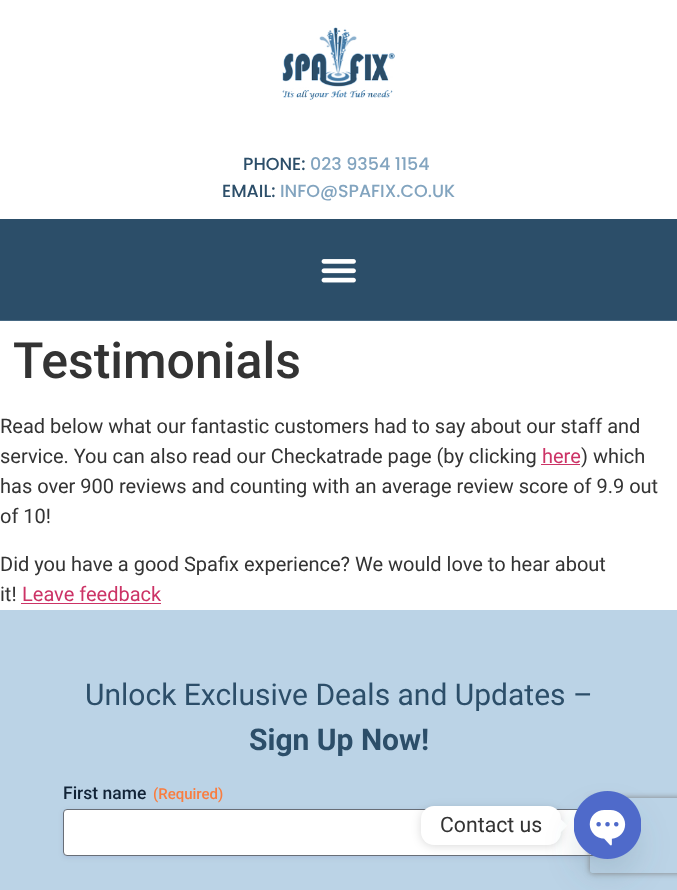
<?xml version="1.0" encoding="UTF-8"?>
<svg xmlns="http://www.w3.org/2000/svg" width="677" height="890">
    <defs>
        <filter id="blur1" x="-50%" y="-200%" width="200%" height="500%"><feGaussianBlur stdDeviation="2.5"/></filter>
        <filter id="blur2" x="-50%" y="-200%" width="200%" height="500%"><feGaussianBlur stdDeviation="5"/></filter>
        <filter id="blur3" x="-50%" y="-200%" width="200%" height="500%"><feGaussianBlur stdDeviation="15"/></filter>
        <clipPath id="clip1"><path d="M 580 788 H 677 V 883 H 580 Z M 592.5 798 H 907.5 C 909 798 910 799 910 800.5 V 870.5 C 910 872 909 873 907.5 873 H 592.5 C 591 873 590 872 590 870.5 V 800.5 C 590 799 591 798 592.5 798 Z" clip-rule="evenodd"/></clipPath>
        <filter id="blur4" x="-50%" y="-200%" width="200%" height="500%"><feGaussianBlur stdDeviation="3"/></filter>
    </defs>
    <rect width="100%" height="100%" fill="#FFFFFF"/>
    <image x="282" y="27" width="113" height="73" href="img_01.png"/>
    <text x="243" y="170" font-family="Poppins" font-size="17.5" font-weight="500" fill="#2C4E69">PHONE:</text>
    <text x="310" y="170" font-family="Poppins" font-size="17.5" font-weight="500" fill="#82A4BF">023 9354 1154</text>
    <text x="222" y="197" font-family="Poppins" font-size="17.5" font-weight="500" fill="#2C4E69">EMAIL:</text>
    <text x="280" y="197" font-family="Poppins" font-size="17.5" font-weight="500" fill="#82A4BF">INFO@SPAFIX.CO.UK</text>
    <rect x="0" y="219" width="677" height="101" fill="#2C4E69"/>
    <rect x="0" y="320" width="677" height="1" fill="#466883"/>
    <image x="321" y="259" width="35" height="24" href="img_02.png"/>
    <text x="13" y="378" font-family="Roboto" font-size="50" font-weight="500" fill="#333333">Testimonials</text>
    <text font-family="Roboto" font-size="20" fill="#333333">
        <tspan x="0" y="433">Read below what our fantastic customers had to say about our staff and</tspan>
        <tspan x="0" y="463">service. You can also read our Checkatrade page (by clicking</tspan>
    </text>
    <text x="542" y="463" font-family="Roboto" font-size="20" fill="#CC3366">here</text>
    <rect x="541" y="464" width="39" height="1" fill="#CC3366"/>
    <text x="581" y="463" font-family="Roboto" font-size="20" fill="#333333">) which</text>
    <text font-family="Roboto" font-size="20" fill="#333333">
        <tspan x="0" y="493">has over 900 reviews and counting with an average review score of 9.9 out</tspan>
        <tspan x="0" y="523">of 10!</tspan>
    </text>
    <text font-family="Roboto" font-size="20" fill="#333333">
        <tspan x="0" y="571">Did you have a good Spafix experience? We would love to hear about</tspan>
        <tspan x="0" y="601">it!</tspan>
    </text>
    <text x="22" y="601" font-family="Roboto" font-size="20" fill="#CC3366">Leave feedback</text>
    <rect x="21" y="603" width="140" height="1" fill="#CC3366"/>
    <rect x="0" y="610" width="677" height="280" fill="#BBD3E6"/>
    <text x="85" y="705" font-family="Roboto" font-size="30" fill="#2C4E69">Unlock Exclusive Deals and Updates –</text>
    <text x="249" y="750" font-family="Roboto" font-size="30" font-weight="700" fill="#2C4E69">Sign Up Now!</text>
    <text x="63" y="799" font-family="Roboto" font-size="17.5" font-weight="500" fill="#112337">First name</text>
    <rect x="63" y="810" width="552" height="48" rx="4" fill="#121961" fill-opacity="0.08" filter="url(#blur1)"/>
    <text x="153" y="799" font-family="Roboto" font-size="15" font-weight="500" fill="#F97D3F">(Required)</text>
    <rect x="63.5" y="809.5" width="551" height="46" rx="3.5" fill="#FFFFFF" stroke="#686E77"/>
    <rect x="421" y="808" width="140" height="38" rx="13" fill="#000000" fill-opacity="0.15" filter="url(#blur2)"/>
    <rect x="421" y="806" width="140" height="39" rx="13" fill="#FFFFFF"/>
    <text x="440" y="832" font-family="Roboto" font-size="21.25" fill="#333333">Contact us</text>
    <path d="M 561 832 V 819.5 L 567.5 825.5 Z" fill="#FFFFFF"/>
    <rect x="574" y="811" width="67" height="68" rx="33.5" fill="#49687E" fill-opacity="0.16" filter="url(#blur3)"/>
    <g clip-path="url(#clip1)">
        <rect x="590" y="798" width="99" height="75" rx="2.5" fill="#808080" filter="url(#blur4)"/>
    </g>
    <image x="574" y="791" width="67" height="68" href="img_03.png"/>
</svg>
